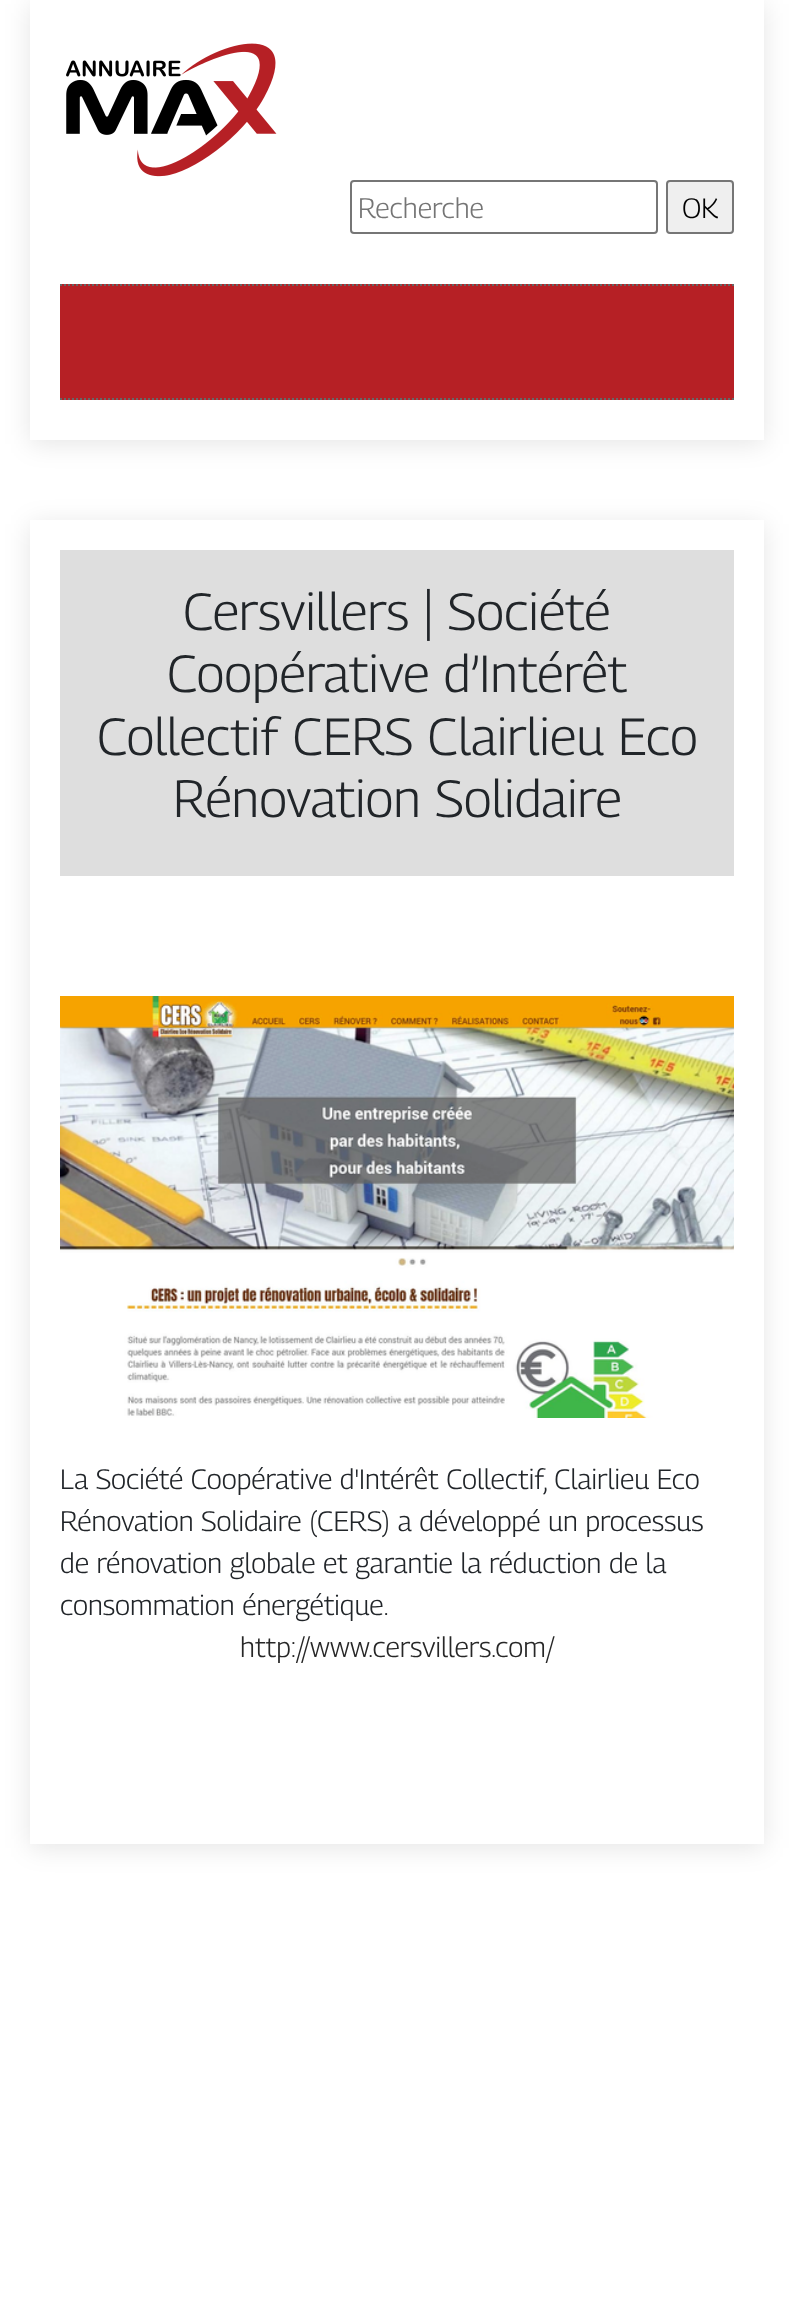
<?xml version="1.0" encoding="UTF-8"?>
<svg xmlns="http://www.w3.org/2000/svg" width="794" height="2317">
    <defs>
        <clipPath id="clip1"><path d="M 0 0 H 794 V 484 H 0 Z M 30 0 H 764 V 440 H 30 Z" clip-rule="evenodd"/></clipPath>
        <filter id="blur1" x="-50%" y="-200%" width="200%" height="500%"><feGaussianBlur stdDeviation="13"/></filter>
        <clipPath id="clip2"><path d="M 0 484 H 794 V 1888 H 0 Z M 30 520 H 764 V 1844 H 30 Z" clip-rule="evenodd"/></clipPath>
    </defs>
    <rect width="100%" height="100%" fill="#FFFFFF"/>
    <g clip-path="url(#clip1)">
        <rect x="30" y="4" width="734" height="440" fill="#000000" fill-opacity="0.1" filter="url(#blur1)"/>
    </g>
    <image x="66" y="43" width="211" height="134" href="img_01.png"/>
    <rect x="351" y="181" width="306" height="52" rx="3" fill="none" stroke="#767676" stroke-width="2"/>
    <text x="358" y="218" font-family="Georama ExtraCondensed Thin" font-size="28" font-weight="100" fill="#757575">Recherche</text>
    <rect x="667" y="181" width="66" height="52" rx="3" fill="#EFEFEF" stroke="#767676" stroke-width="2"/>
    <text x="682" y="218" font-family="Georama ExtraCondensed Thin" font-size="28" font-weight="100" fill="#000000">OK</text>
    <rect x="60" y="284" width="674" height="116" fill="#B62025"/>
    <path d="M 60 285 H 734" fill="none" stroke="#666666" stroke-width="2" stroke-dasharray="2 2"/>
    <path d="M 60 399 H 734" fill="none" stroke="#666666" stroke-width="2" stroke-dasharray="2 2"/>
    <g clip-path="url(#clip2)">
        <rect x="30" y="524" width="734" height="1324" fill="#000000" fill-opacity="0.1" filter="url(#blur1)"/>
    </g>
    <rect x="60" y="550" width="674" height="326" fill="#DEDEDE"/>
    <text x="183" y="630" font-family="Georama ExtraCondensed Thin" font-size="52" font-weight="100" fill="#212529">Cersvillers | Société</text>
    <text x="167" y="692" font-family="Georama ExtraCondensed Thin" font-size="52" font-weight="100" fill="#212529">Coopérative d’Intérêt</text>
    <text x="97" y="755" font-family="Georama ExtraCondensed Thin" font-size="52" font-weight="100" fill="#212529">Collectif CERS Clairlieu Eco</text>
    <text x="173" y="817" font-family="Georama ExtraCondensed Thin" font-size="52" font-weight="100" fill="#212529">Rénovation Solidaire</text>
    <image x="60" y="996" width="674" height="422" href="img_02.png"/>
    <text font-family="Georama ExtraCondensed Thin" font-size="28" font-weight="100" fill="#212529">
        <tspan x="60" y="1489">La Société Coopérative d'Intérêt Collectif, Clairlieu Eco</tspan>
        <tspan x="60" y="1531">Rénovation Solidaire (CERS) a développé un processus</tspan>
        <tspan x="60" y="1573">de rénovation globale et garantie la réduction de la</tspan>
        <tspan x="60" y="1615">consommation énergétique.</tspan>
    </text>
    <text x="240" y="1657" font-family="Georama ExtraCondensed Thin" font-size="28" font-weight="100" fill="#272727">http://www.cersvillers.com/</text>
</svg>
